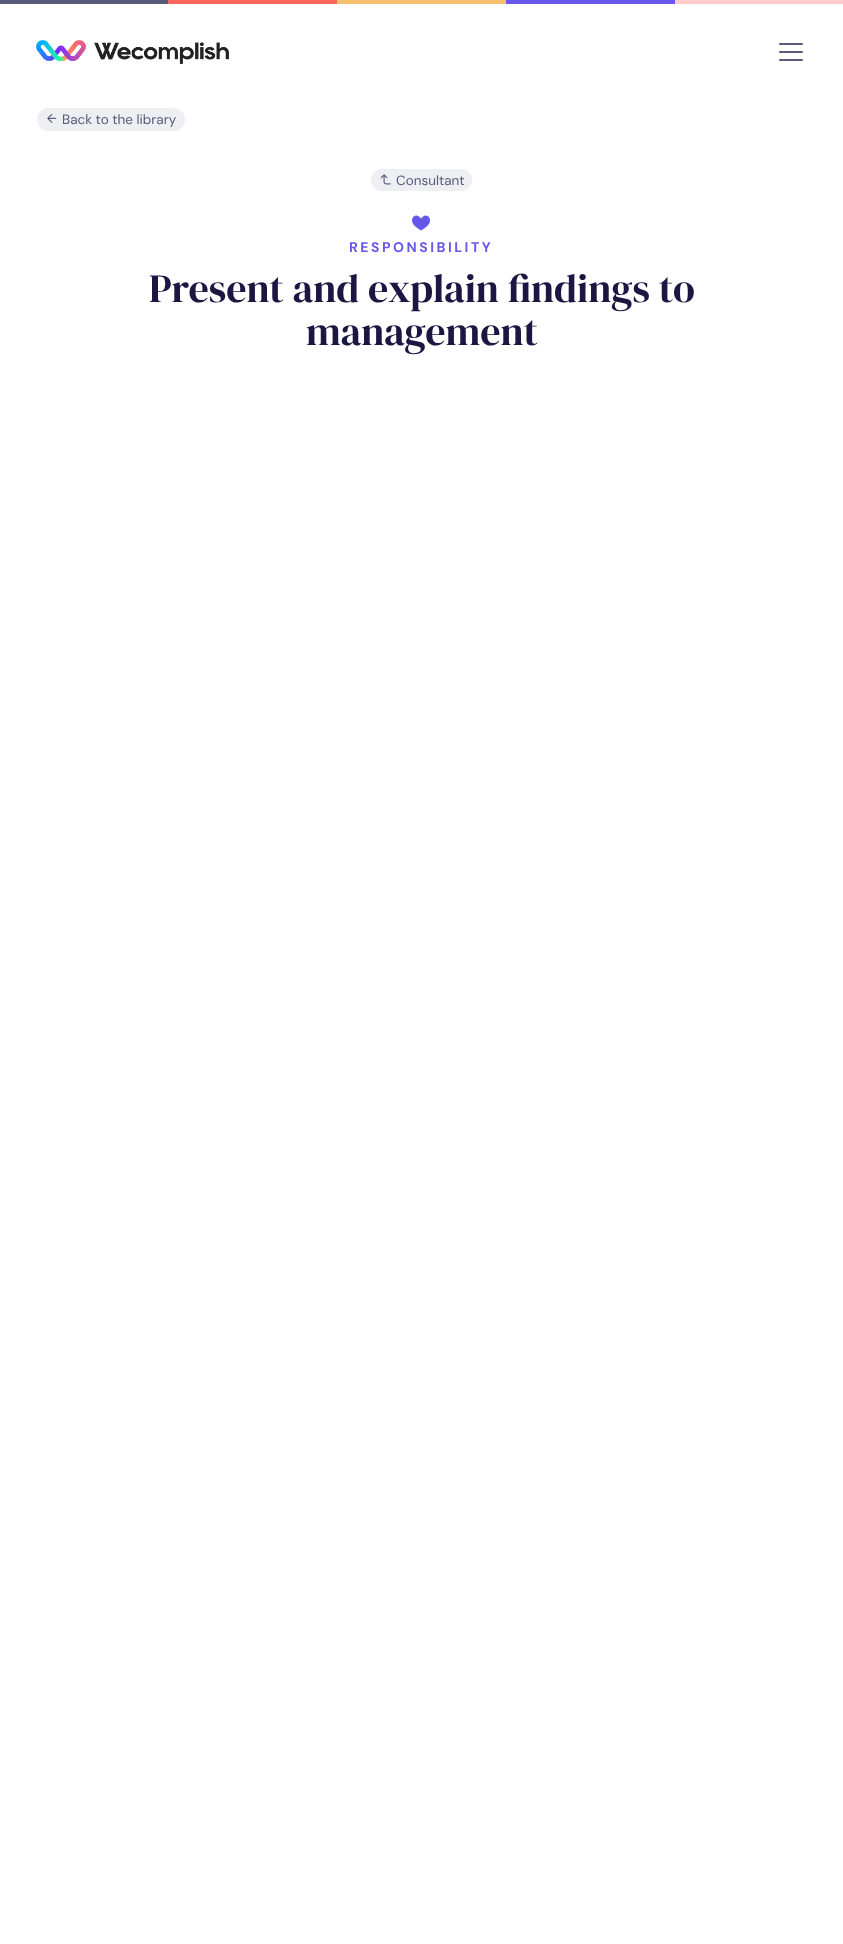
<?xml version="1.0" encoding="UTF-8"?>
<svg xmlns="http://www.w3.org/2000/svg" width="843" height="1944">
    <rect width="100%" height="100%" fill="#FFFFFF"/>
    <image x="0" y="0" width="843" height="4" href="img_01.png"/>
    <image x="36" y="40" width="193" height="24" href="img_02.png"/>
    <image x="779" y="43" width="24" height="18" href="img_03.png"/>
    <rect x="37" y="108" width="148" height="23" rx="11.5" fill="#EEEFF2"/>
    <image x="47" y="113" width="10" height="10" href="img_04.png"/>
    <text x="62" y="124" font-family="DM Sans" font-size="13.5" fill="#575A7B">Back to the library</text>
    <rect x="371" y="169" width="101" height="22" rx="11" fill="#EEEFF2"/>
    <image x="380" y="174" width="11" height="11" href="img_05.png"/>
    <text x="396" y="185" font-family="DM Sans" font-size="13.5" fill="#575A7B">Consultant</text>
    <image x="412" y="215" width="18" height="16" href="img_06.png"/>
    <text x="349" y="252" font-family="DM Sans" font-size="14" font-weight="700" letter-spacing="2.5" fill="#6658EA">RESPONSIBILITY</text>
    <text x="149" y="302" font-family="DM Serif Display" font-size="40" fill="#1B1642">Present and explain findings to</text>
    <text x="306" y="345" font-family="DM Serif Display" font-size="40" fill="#1B1642">management</text>
</svg>
